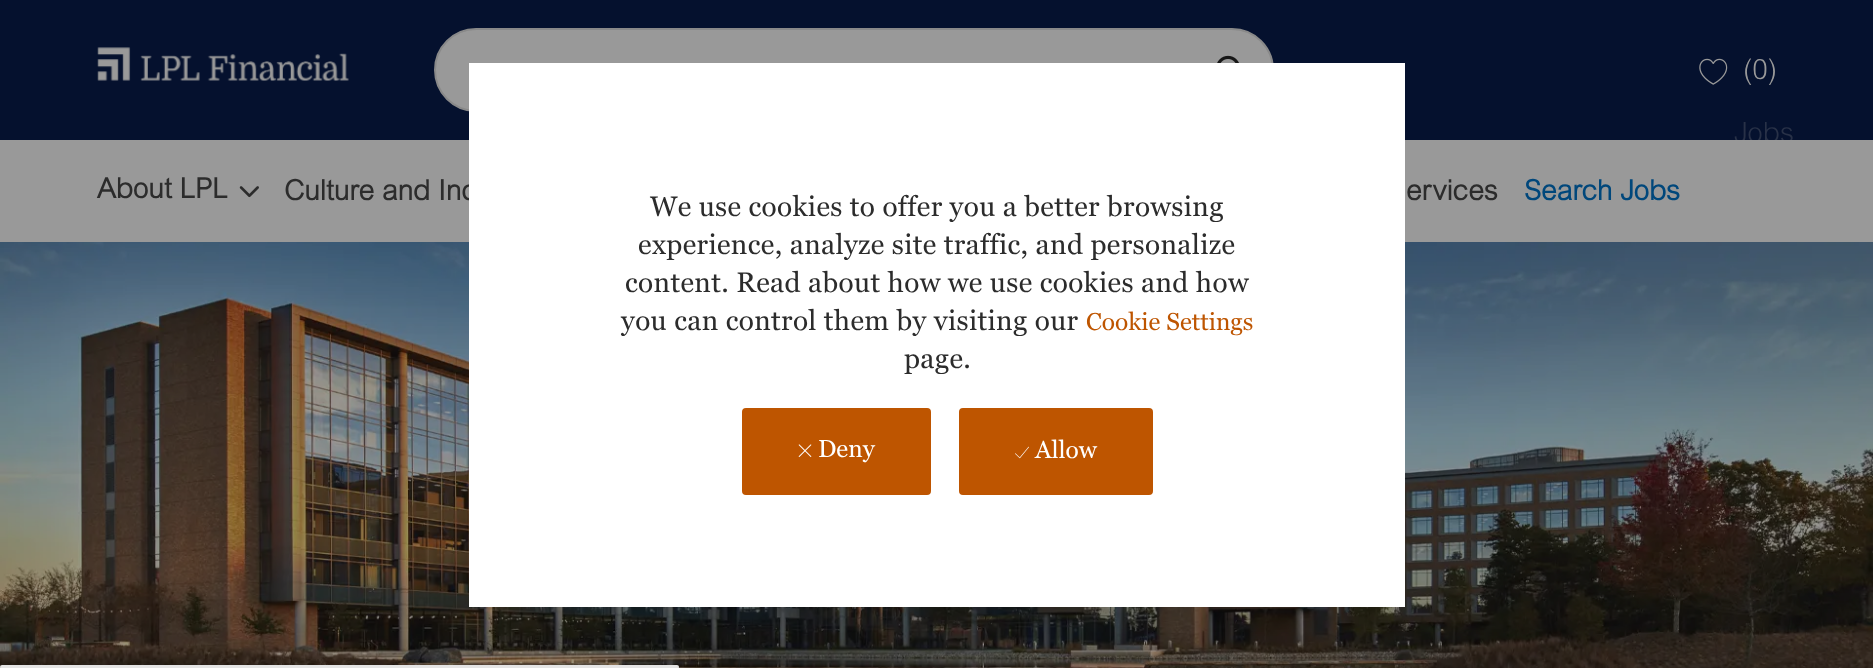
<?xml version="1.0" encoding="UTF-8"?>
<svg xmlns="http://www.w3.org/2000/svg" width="1873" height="668">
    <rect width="100%" height="100%" fill="#FFFFFF"/>
    <rect x="0" y="0" width="1873" height="140" fill="#05112E"/>
    <image x="97" y="47" width="252" height="34" href="img_01.png"/>
    <rect x="435" y="29" width="838" height="82" rx="41" fill="#999999" stroke="#898989" stroke-width="2"/>
    <image x="1217" y="55" width="22" height="8" href="img_02.png"/>
    <image x="1699" y="58" width="29" height="27" href="img_03.png"/>
    <text x="1743" y="79" font-family="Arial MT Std" font-size="28" font-weight="300" fill="#999999">(0)</text>
    <text x="1734" y="142" font-family="Arial MT Std" font-size="28" font-weight="300" fill="#283147">Jobs</text>
    <rect x="0" y="140" width="1873" height="102" fill="#999999"/>
    <text x="97" y="198" font-family="Arial MT Std" font-size="28" font-weight="700" fill="#2C2C2C">About LPL</text>
    <image x="239" y="186" width="20" height="12" href="img_04.png"/>
    <text x="284" y="200" font-family="Arial MT Std" font-size="28" font-weight="700" fill="#2C2C2C">Culture and Inc</text>
    <text x="1406" y="200" font-family="Arial MT Std" font-size="28" font-weight="700" fill="#2C2C2C">ervices</text>
    <text x="1524" y="200" font-family="Arial MT Std" font-size="28" font-weight="700" fill="#00477B">Search Jobs</text>
    <image x="0" y="242" width="1873" height="426" href="img_07.png"/>
    <rect x="469" y="63" width="936" height="544" fill="#FFFFFF"/>
    <text x="650" y="216" font-family="Georgia" font-size="28" letter-spacing="0.35" fill="#2C2C2C">We use cookies to offer you a better browsing</text>
    <text x="638" y="254" font-family="Georgia" font-size="28" letter-spacing="0.35" fill="#2C2C2C">experience, analyze site traffic, and personalize</text>
    <text x="625" y="292" font-family="Georgia" font-size="28" letter-spacing="0.35" fill="#2C2C2C">content. Read about how we use cookies and how</text>
    <text x="621" y="330" font-family="Georgia" font-size="28" letter-spacing="0.35" fill="#2C2C2C">you can control them by visiting our</text>
    <text x="1086" y="330" font-family="Georgia" font-size="24.5" fill="#BE5500">Cookie Settings</text>
    <text x="904" y="368" font-family="Georgia" font-size="28" letter-spacing="0.35" fill="#2C2C2C">page.</text>
    <rect x="743" y="409" width="187" height="85" rx="3" fill="#BE5500" stroke="#BE5500" stroke-width="2"/>
    <image x="798" y="444" width="14" height="13" href="img_05.png"/>
    <text x="818" y="457" font-family="Georgia" font-size="24.5" fill="#FFFFFF">Deny</text>
    <rect x="960" y="409" width="192" height="85" rx="3" fill="#BE5500" stroke="#BE5500" stroke-width="2"/>
    <image x="1015" y="446" width="14" height="13" href="img_06.png"/>
    <text x="1035" y="458" font-family="Georgia" font-size="24.5" fill="#FFFFFF">Allow</text>
    <rect x="0" y="665" width="679" height="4" rx="2" fill="#E4E4E4"/>
</svg>
